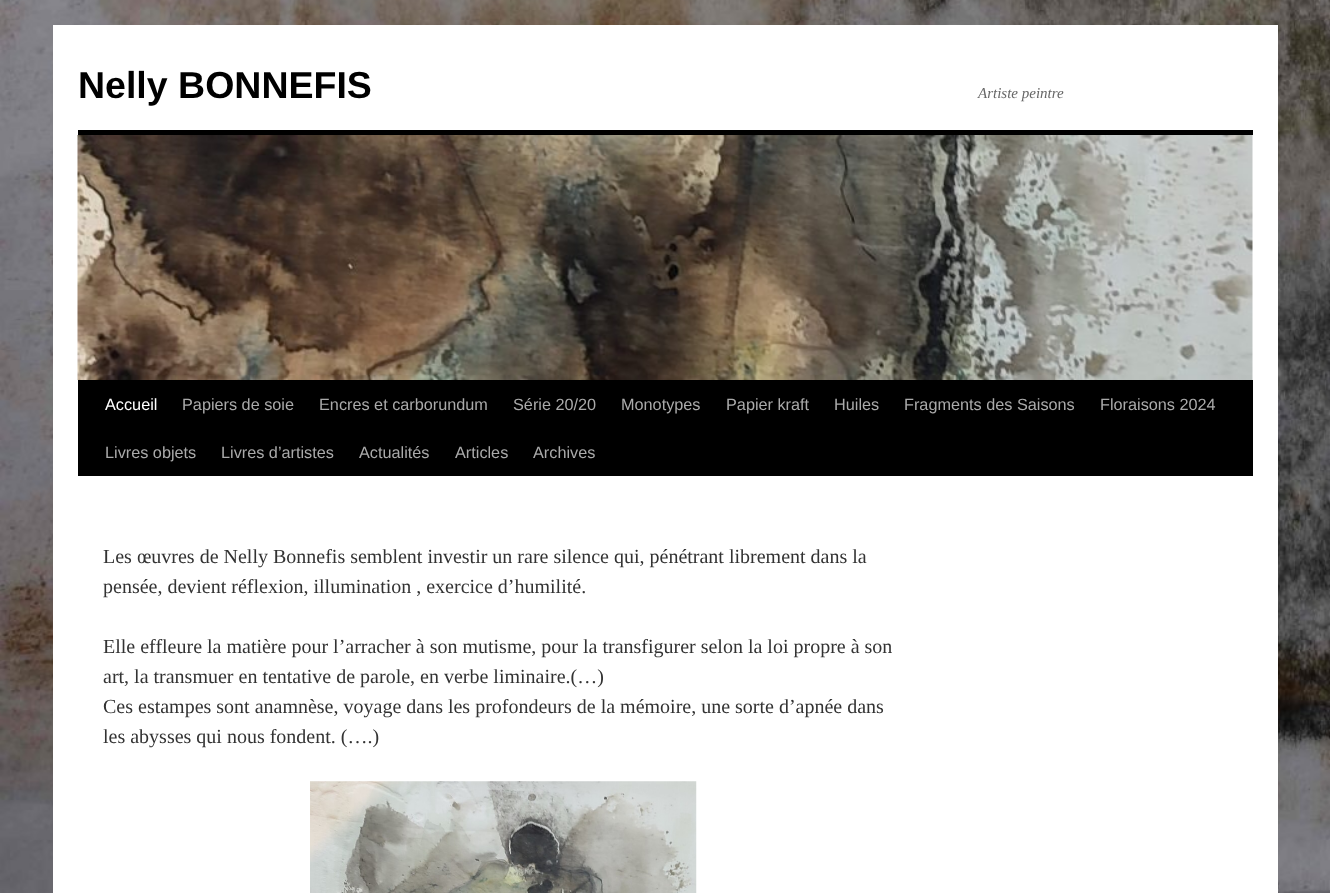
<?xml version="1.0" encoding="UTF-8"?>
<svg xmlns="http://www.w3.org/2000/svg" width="1330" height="893">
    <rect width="100%" height="100%" fill="#FFFFFF"/>
    <image x="0" y="0" width="1330" height="893" href="img_01.png"/>
    <rect x="53" y="25" width="1225" height="868" fill="#FFFFFF"/>
    <text x="78" y="98" font-family="Liberation Sans" font-size="37.5" font-weight="700" fill="#000000">Nelly BONNEFIS</text>
    <text x="978" y="98" font-family="Liberation Serif" font-size="15" font-style="italic" fill="#666666">Artiste peintre</text>
    <rect x="78" y="130" width="1175" height="5" fill="#000000"/>
    <rect x="78" y="380" width="1175" height="96" fill="#000000"/>
    <image x="77" y="135" width="1176" height="245" href="img_02.png"/>
    <text x="105" y="410" font-family="Liberation Sans" font-size="16.25" fill="#FFFFFF">Accueil</text>
    <text x="182" y="410" font-family="Liberation Sans" font-size="16.25" fill="#AAAAAA">Papiers de soie</text>
    <text x="319" y="410" font-family="Liberation Sans" font-size="16.25" fill="#AAAAAA">Encres et carborundum</text>
    <text x="513" y="410" font-family="Liberation Sans" font-size="16.25" fill="#AAAAAA">Série 20/20</text>
    <text x="621" y="410" font-family="Liberation Sans" font-size="16.25" fill="#AAAAAA">Monotypes</text>
    <text x="726" y="410" font-family="Liberation Sans" font-size="16.25" fill="#AAAAAA">Papier kraft</text>
    <text x="834" y="410" font-family="Liberation Sans" font-size="16.25" fill="#AAAAAA">Huiles</text>
    <text x="904" y="410" font-family="Liberation Sans" font-size="16.25" fill="#AAAAAA">Fragments des Saisons</text>
    <text x="1100" y="410" font-family="Liberation Sans" font-size="16.25" fill="#AAAAAA">Floraisons 2024</text>
    <text x="105" y="458" font-family="Liberation Sans" font-size="16.25" fill="#AAAAAA">Livres objets</text>
    <text x="221" y="458" font-family="Liberation Sans" font-size="16.25" fill="#AAAAAA">Livres d’artistes</text>
    <text x="359" y="458" font-family="Liberation Sans" font-size="16.25" fill="#AAAAAA">Actualités</text>
    <text x="455" y="458" font-family="Liberation Sans" font-size="16.25" fill="#AAAAAA">Articles</text>
    <text x="533" y="458" font-family="Liberation Sans" font-size="16.25" fill="#AAAAAA">Archives</text>
    <text font-family="Liberation Serif" font-size="20" fill="#333333">
        <tspan x="103" y="563">Les œuvres de Nelly Bonnefis semblent investir un rare silence qui, pénétrant librement dans la</tspan>
        <tspan x="103" y="593">pensée, devient réflexion, illumination , exercice d’humilité.</tspan>
    </text>
    <text font-family="Liberation Serif" font-size="20" fill="#333333">
        <tspan x="103" y="653">Elle effleure la matière pour l’arracher à son mutisme, pour la transfigurer selon la loi propre à son</tspan>
        <tspan x="103" y="683">art, la transmuer en tentative de parole, en verbe liminaire.(…)</tspan>
        <tspan x="103" y="713">Ces estampes sont anamnèse, voyage dans les profondeurs de la mémoire, une sorte d’apnée dans</tspan>
        <tspan x="103" y="743">les abysses qui nous fondent. (….)</tspan>
    </text>
    <image x="310" y="781" width="387" height="112" href="img_03.png"/>
</svg>
